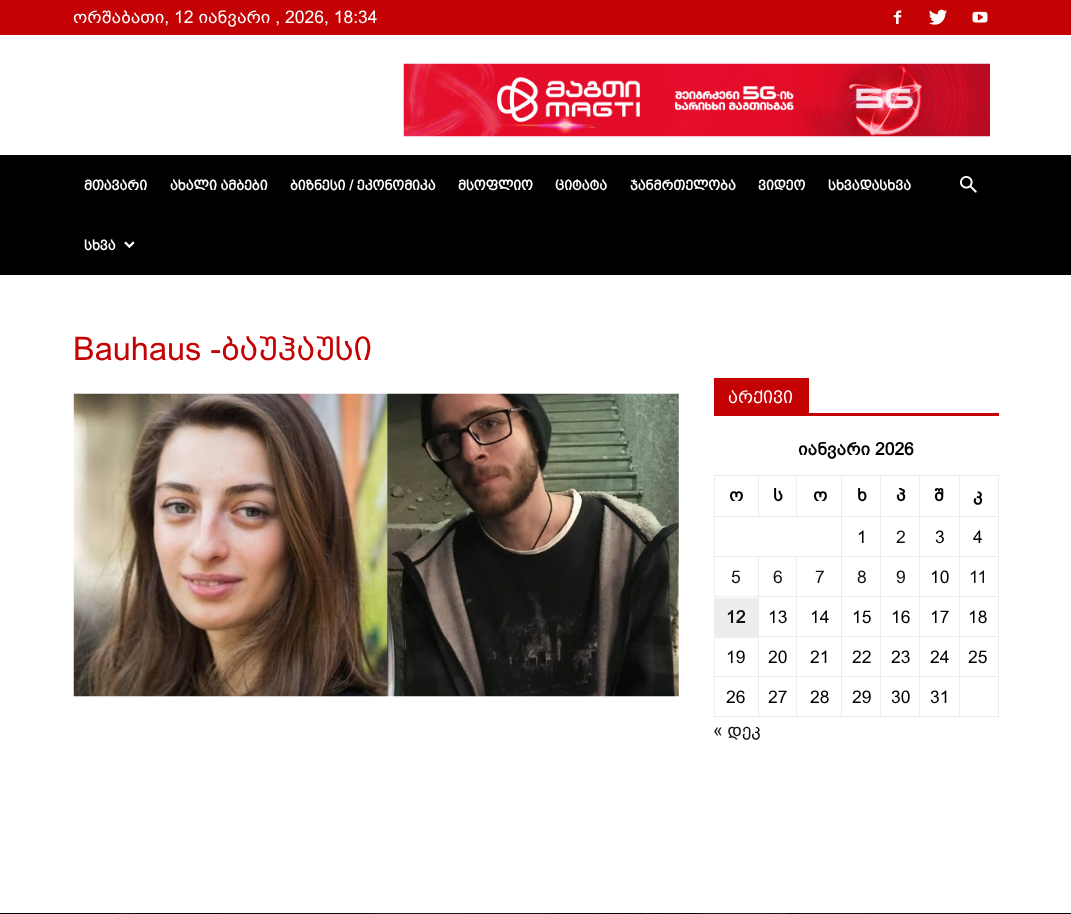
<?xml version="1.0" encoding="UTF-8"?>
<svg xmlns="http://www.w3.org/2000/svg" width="1071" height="914">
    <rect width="100%" height="100%" fill="#FFFFFF"/>
    <rect x="0" y="0" width="1071" height="35" fill="#C50203"/>
    <text x="73" y="23" font-family="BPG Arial" font-size="17.5" fill="#FFFFFF">ორშაბათი, 12 იანვარი , 2026, 18:34</text>
    <image x="893" y="10" width="9" height="14" href="img_01.png"/>
    <image x="929" y="9" width="18" height="16" href="img_02.png"/>
    <image x="972" y="11" width="16" height="12" href="img_03.png"/>
    <image x="403" y="63" width="587" height="74" href="img_04.png"/>
    <rect x="0" y="155" width="1071" height="120" fill="#000000"/>
    <text x="84" y="190" font-family="'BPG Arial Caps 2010'" font-size="13.75" font-weight="700" fill="#FFFFFF">მთავარი</text>
    <text x="170" y="190" font-family="'BPG Arial Caps 2010'" font-size="13.75" font-weight="700" fill="#FFFFFF">ახალი ამბები</text>
    <text x="290" y="190" font-family="'BPG Arial Caps 2010'" font-size="13.75" font-weight="700" fill="#FFFFFF">ბიზნესი / ეკონომიკა</text>
    <text x="458" y="190" font-family="'BPG Arial Caps 2010'" font-size="13.75" font-weight="700" fill="#FFFFFF">მსოფლიო</text>
    <text x="555" y="190" font-family="'BPG Arial Caps 2010'" font-size="13.75" font-weight="700" fill="#FFFFFF">ციტატა</text>
    <text x="630" y="190" font-family="'BPG Arial Caps 2010'" font-size="13.75" font-weight="700" fill="#FFFFFF">ჯანმრთელობა</text>
    <text x="758" y="190" font-family="'BPG Arial Caps 2010'" font-size="13.75" font-weight="700" fill="#FFFFFF">ვიდეო</text>
    <text x="828" y="190" font-family="'BPG Arial Caps 2010'" font-size="13.75" font-weight="700" fill="#FFFFFF">სხვადასხვა</text>
    <text x="84" y="250" font-family="'BPG Arial Caps 2010'" font-size="13.75" font-weight="700" fill="#FFFFFF">სხვა</text>
    <image x="124" y="241" width="11" height="7" href="img_05.png"/>
    <image x="960" y="176" width="17" height="17" href="img_06.png"/>
    <text x="73" y="360" font-family="'BPG Arial Caps 2010'" font-size="32.5" fill="#C50203">Bauhaus -ბაუჰაუსი</text>
    <image x="73" y="393" width="606" height="304" href="img_07.png"/>
    <rect x="714" y="413" width="285" height="3" fill="#C50203"/>
    <rect x="714" y="378" width="95" height="35" fill="#C50203"/>
    <text x="728" y="403" font-family="'BPG Arial Caps 2010'" font-size="17.5" fill="#FFFFFF">არქივი</text>
    <text x="798" y="455" font-family="BPG Arial" font-size="17.5" font-weight="700" fill="#000000">იანვარი 2026</text>
    <rect x="959" y="475" width="40" height="1" fill="#EDEDED"/>
    <rect x="959" y="516" width="40" height="1" fill="#EDEDED"/>
    <rect x="959" y="556" width="40" height="1" fill="#EDEDED"/>
    <rect x="959" y="596" width="40" height="1" fill="#EDEDED"/>
    <rect x="959" y="636" width="40" height="1" fill="#EDEDED"/>
    <rect x="959" y="676" width="40" height="1" fill="#EDEDED"/>
    <rect x="998" y="676" width="1" height="42" fill="#EDEDED"/>
    <rect x="959" y="716" width="40" height="1" fill="#EDEDED"/>
    <rect x="959" y="676" width="1" height="42" fill="#EDEDED"/>
    <rect x="919" y="676" width="41" height="1" fill="#EDEDED"/>
    <rect x="959" y="636" width="1" height="42" fill="#EDEDED"/>
    <rect x="919" y="636" width="41" height="1" fill="#EDEDED"/>
    <rect x="959" y="596" width="1" height="42" fill="#EDEDED"/>
    <rect x="919" y="596" width="41" height="1" fill="#EDEDED"/>
    <rect x="959" y="556" width="1" height="42" fill="#EDEDED"/>
    <rect x="919" y="556" width="41" height="1" fill="#EDEDED"/>
    <rect x="959" y="516" width="1" height="42" fill="#EDEDED"/>
    <rect x="919" y="516" width="41" height="1" fill="#EDEDED"/>
    <rect x="959" y="475" width="1" height="43" fill="#EDEDED"/>
    <rect x="919" y="475" width="41" height="1" fill="#EDEDED"/>
    <rect x="919" y="716" width="41" height="1" fill="#EDEDED"/>
    <rect x="919" y="676" width="1" height="42" fill="#EDEDED"/>
    <rect x="880" y="676" width="40" height="1" fill="#EDEDED"/>
    <rect x="919" y="636" width="1" height="42" fill="#EDEDED"/>
    <rect x="880" y="636" width="40" height="1" fill="#EDEDED"/>
    <rect x="919" y="596" width="1" height="42" fill="#EDEDED"/>
    <rect x="880" y="596" width="40" height="1" fill="#EDEDED"/>
    <rect x="919" y="556" width="1" height="42" fill="#EDEDED"/>
    <rect x="880" y="556" width="40" height="1" fill="#EDEDED"/>
    <rect x="919" y="516" width="1" height="42" fill="#EDEDED"/>
    <rect x="880" y="516" width="40" height="1" fill="#EDEDED"/>
    <rect x="919" y="475" width="1" height="43" fill="#EDEDED"/>
    <rect x="880" y="475" width="40" height="1" fill="#EDEDED"/>
    <rect x="880" y="716" width="40" height="1" fill="#EDEDED"/>
    <rect x="880" y="676" width="1" height="42" fill="#EDEDED"/>
    <rect x="841" y="676" width="40" height="1" fill="#EDEDED"/>
    <rect x="880" y="636" width="1" height="42" fill="#EDEDED"/>
    <rect x="841" y="636" width="40" height="1" fill="#EDEDED"/>
    <rect x="880" y="596" width="1" height="42" fill="#EDEDED"/>
    <rect x="841" y="596" width="40" height="1" fill="#EDEDED"/>
    <rect x="880" y="556" width="1" height="42" fill="#EDEDED"/>
    <rect x="841" y="556" width="40" height="1" fill="#EDEDED"/>
    <rect x="880" y="516" width="1" height="42" fill="#EDEDED"/>
    <rect x="841" y="516" width="40" height="1" fill="#EDEDED"/>
    <rect x="880" y="475" width="1" height="43" fill="#EDEDED"/>
    <rect x="841" y="475" width="40" height="1" fill="#EDEDED"/>
    <rect x="841" y="716" width="40" height="1" fill="#EDEDED"/>
    <rect x="841" y="676" width="1" height="42" fill="#EDEDED"/>
    <rect x="796" y="676" width="47" height="1" fill="#EDEDED"/>
    <rect x="841" y="636" width="1" height="42" fill="#EDEDED"/>
    <rect x="796" y="636" width="47" height="1" fill="#EDEDED"/>
    <rect x="841" y="596" width="1" height="42" fill="#EDEDED"/>
    <rect x="796" y="596" width="47" height="1" fill="#EDEDED"/>
    <rect x="841" y="556" width="1" height="42" fill="#EDEDED"/>
    <rect x="796" y="556" width="47" height="1" fill="#EDEDED"/>
    <rect x="841" y="516" width="1" height="42" fill="#EDEDED"/>
    <rect x="714" y="516" width="129" height="1" fill="#EDEDED"/>
    <rect x="841" y="475" width="1" height="43" fill="#EDEDED"/>
    <rect x="796" y="475" width="47" height="1" fill="#EDEDED"/>
    <rect x="796" y="475" width="1" height="43" fill="#EDEDED"/>
    <rect x="758" y="475" width="40" height="1" fill="#EDEDED"/>
    <rect x="758" y="475" width="1" height="43" fill="#EDEDED"/>
    <rect x="714" y="475" width="45" height="1" fill="#EDEDED"/>
    <rect x="796" y="716" width="47" height="1" fill="#EDEDED"/>
    <rect x="796" y="676" width="1" height="42" fill="#EDEDED"/>
    <rect x="758" y="676" width="40" height="1" fill="#EDEDED"/>
    <rect x="796" y="636" width="1" height="42" fill="#EDEDED"/>
    <rect x="758" y="636" width="40" height="1" fill="#EDEDED"/>
    <rect x="796" y="596" width="1" height="42" fill="#EDEDED"/>
    <rect x="758" y="596" width="40" height="1" fill="#EDEDED"/>
    <rect x="796" y="556" width="1" height="42" fill="#EDEDED"/>
    <rect x="758" y="556" width="40" height="1" fill="#EDEDED"/>
    <rect x="758" y="716" width="40" height="1" fill="#EDEDED"/>
    <rect x="758" y="676" width="1" height="42" fill="#EDEDED"/>
    <rect x="714" y="676" width="45" height="1" fill="#EDEDED"/>
    <rect x="758" y="636" width="1" height="42" fill="#EDEDED"/>
    <rect x="758" y="596" width="1" height="42" fill="#EDEDED"/>
    <rect x="714" y="596" width="45" height="1" fill="#EDEDED"/>
    <rect x="758" y="556" width="1" height="42" fill="#EDEDED"/>
    <rect x="714" y="556" width="45" height="1" fill="#EDEDED"/>
    <rect x="714" y="716" width="45" height="1" fill="#EDEDED"/>
    <rect x="714" y="636" width="1" height="82" fill="#EDEDED"/>
    <rect x="714" y="596" width="1" height="42" fill="#EDEDED"/>
    <rect x="714" y="556" width="1" height="42" fill="#EDEDED"/>
    <rect x="714" y="516" width="1" height="42" fill="#EDEDED"/>
    <rect x="714" y="475" width="1" height="43" fill="#EDEDED"/>
    <text x="729" y="501" font-family="BPG Arial" font-size="17.5" font-weight="700" fill="#000000">ო</text>
    <text x="773" y="501" font-family="BPG Arial" font-size="17.5" font-weight="700" fill="#000000">ს</text>
    <text x="813" y="501" font-family="BPG Arial" font-size="17.5" font-weight="700" fill="#000000">ო</text>
    <text x="857" y="501" font-family="BPG Arial" font-size="17.5" font-weight="700" fill="#000000">ხ</text>
    <text x="896" y="501" font-family="BPG Arial" font-size="17.5" font-weight="700" fill="#000000">პ</text>
    <text x="934" y="501" font-family="BPG Arial" font-size="17.5" font-weight="700" fill="#000000">შ</text>
    <rect x="998" y="636" width="1" height="42" fill="#EDEDED"/>
    <rect x="998" y="596" width="1" height="42" fill="#EDEDED"/>
    <rect x="998" y="556" width="1" height="42" fill="#EDEDED"/>
    <rect x="998" y="516" width="1" height="42" fill="#EDEDED"/>
    <rect x="998" y="475" width="1" height="43" fill="#EDEDED"/>
    <text x="973" y="501" font-family="BPG Arial" font-size="17.5" font-weight="700" fill="#000000">კ</text>
    <text x="857" y="543" font-family="BPG Arial" font-size="17.5" fill="#000000">1</text>
    <text x="896" y="543" font-family="BPG Arial" font-size="17.5" fill="#111111">2</text>
    <text x="935" y="543" font-family="BPG Arial" font-size="17.5" fill="#000000">3</text>
    <text x="973" y="543" font-family="BPG Arial" font-size="17.5" fill="#000000">4</text>
    <text x="731" y="583" font-family="BPG Arial" font-size="17.5" fill="#111111">5</text>
    <text x="773" y="583" font-family="BPG Arial" font-size="17.5" fill="#111111">6</text>
    <text x="815" y="583" font-family="BPG Arial" font-size="17.5" fill="#111111">7</text>
    <text x="857" y="583" font-family="BPG Arial" font-size="17.5" fill="#111111">8</text>
    <text x="896" y="583" font-family="BPG Arial" font-size="17.5" fill="#111111">9</text>
    <text x="930" y="583" font-family="BPG Arial" font-size="17.5" fill="#000000">10</text>
    <text x="969" y="583" font-family="BPG Arial" font-size="17.5" fill="#111111">11</text>
    <rect x="715" y="598" width="43" height="40" fill="#EDEDED"/>
    <text x="726" y="623" font-family="BPG Arial" font-size="17.5" font-weight="700" fill="#111111">12</text>
    <text x="768" y="623" font-family="BPG Arial" font-size="17.5" fill="#000000">13</text>
    <text x="810" y="623" font-family="BPG Arial" font-size="17.5" fill="#000000">14</text>
    <text x="852" y="623" font-family="BPG Arial" font-size="17.5" fill="#000000">15</text>
    <text x="891" y="623" font-family="BPG Arial" font-size="17.5" fill="#000000">16</text>
    <text x="930" y="623" font-family="BPG Arial" font-size="17.5" fill="#000000">17</text>
    <text x="968" y="623" font-family="BPG Arial" font-size="17.5" fill="#000000">18</text>
    <text x="726" y="663" font-family="BPG Arial" font-size="17.5" fill="#000000">19</text>
    <text x="768" y="663" font-family="BPG Arial" font-size="17.5" fill="#000000">20</text>
    <text x="810" y="663" font-family="BPG Arial" font-size="17.5" fill="#000000">21</text>
    <text x="852" y="663" font-family="BPG Arial" font-size="17.5" fill="#000000">22</text>
    <text x="891" y="663" font-family="BPG Arial" font-size="17.5" fill="#000000">23</text>
    <text x="930" y="663" font-family="BPG Arial" font-size="17.5" fill="#000000">24</text>
    <text x="968" y="663" font-family="BPG Arial" font-size="17.5" fill="#000000">25</text>
    <text x="726" y="703" font-family="BPG Arial" font-size="17.5" fill="#000000">26</text>
    <text x="768" y="703" font-family="BPG Arial" font-size="17.5" fill="#000000">27</text>
    <text x="810" y="703" font-family="BPG Arial" font-size="17.5" fill="#000000">28</text>
    <text x="852" y="703" font-family="BPG Arial" font-size="17.5" fill="#000000">29</text>
    <text x="891" y="703" font-family="BPG Arial" font-size="17.5" fill="#000000">30</text>
    <text x="930" y="703" font-family="BPG Arial" font-size="17.5" fill="#000000">31</text>
    <text x="713" y="736" font-family="BPG Arial" font-size="17.5" fill="#111111">« დეკ</text>
    <rect x="0" y="913" width="1071" height="1" fill="#000000"/>
    <image x="117" y="913" width="954" height="1" href="img_08.png"/>
</svg>
